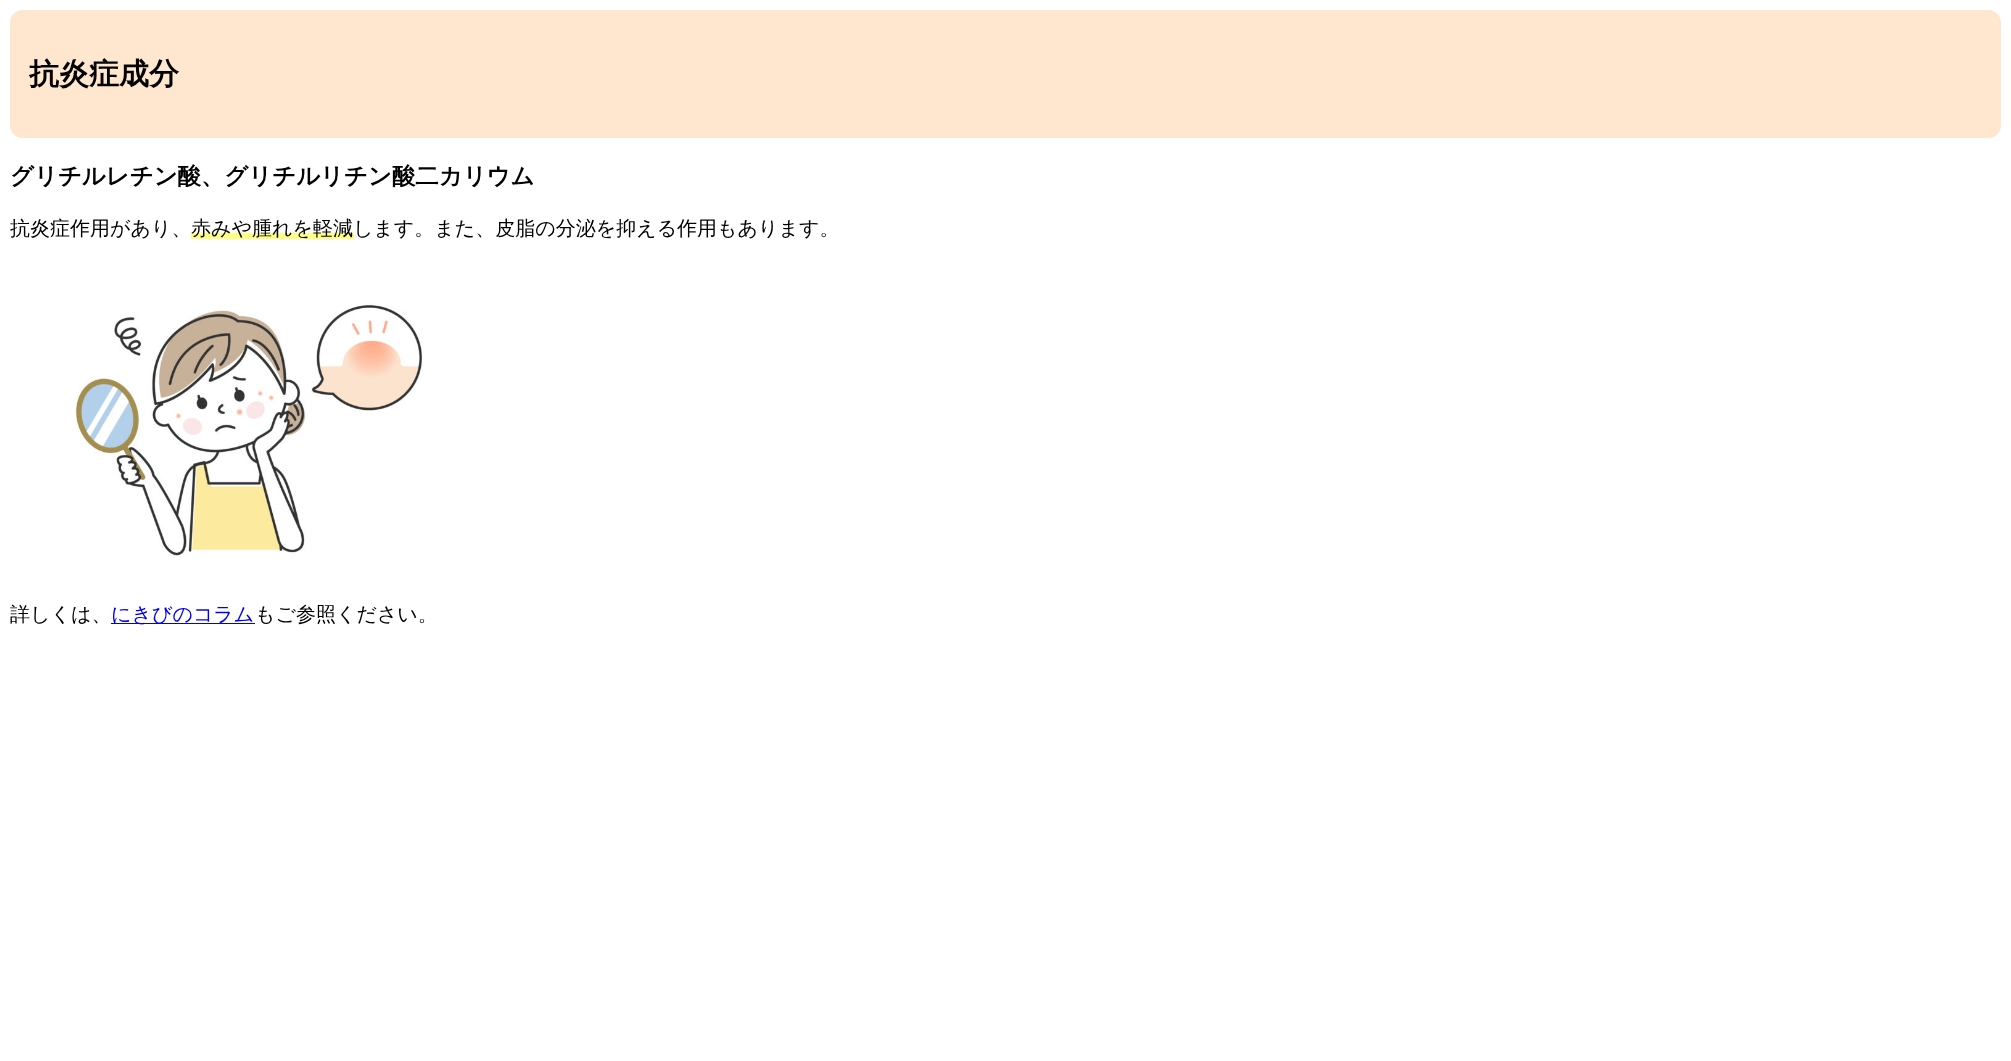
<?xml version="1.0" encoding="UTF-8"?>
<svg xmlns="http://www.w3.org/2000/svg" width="2011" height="1061">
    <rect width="100%" height="100%" fill="#FFFFFF"/>
    <rect x="10" y="10" width="1991" height="128" rx="13" fill="#FFE6CE"/>
    <text x="29" y="84" font-family="WenQuanYi Zen Hei" font-size="30" font-weight="700" fill="#000000">抗炎症成分</text>
    <text x="10" y="184" font-family="WenQuanYi Zen Hei" font-size="23.4" font-weight="700" fill="#000000">グリチルレチン酸、グリチルリチン酸二カリウム</text>
    <text x="10" y="235" font-family="WenQuanYi Zen Hei" font-size="20" font-weight="500" fill="#000000">抗炎症作用があり、</text>
    <rect x="191" y="233" width="163" height="6" fill="#FFFF7F"/>
    <text x="191" y="235" font-family="WenQuanYi Zen Hei" font-size="20" font-weight="500" fill="#000000">赤みや腫れを軽減します。また、皮脂の分泌を抑える作用もあります。</text>
    <image x="74" y="303" width="349" height="254" href="img_01.png"/>
    <text x="10" y="621" font-family="WenQuanYi Zen Hei" font-size="20" font-weight="500" fill="#000000">詳しくは、</text>
    <rect x="111" y="623" width="144" height="1" fill="#0000EE"/>
    <text x="111" y="621" font-family="WenQuanYi Zen Hei" font-size="20" font-weight="500" fill="#0000EE">にきびのコラム</text>
    <text x="255" y="621" font-family="WenQuanYi Zen Hei" font-size="20" font-weight="500" fill="#000000">もご参照ください。</text>
</svg>
